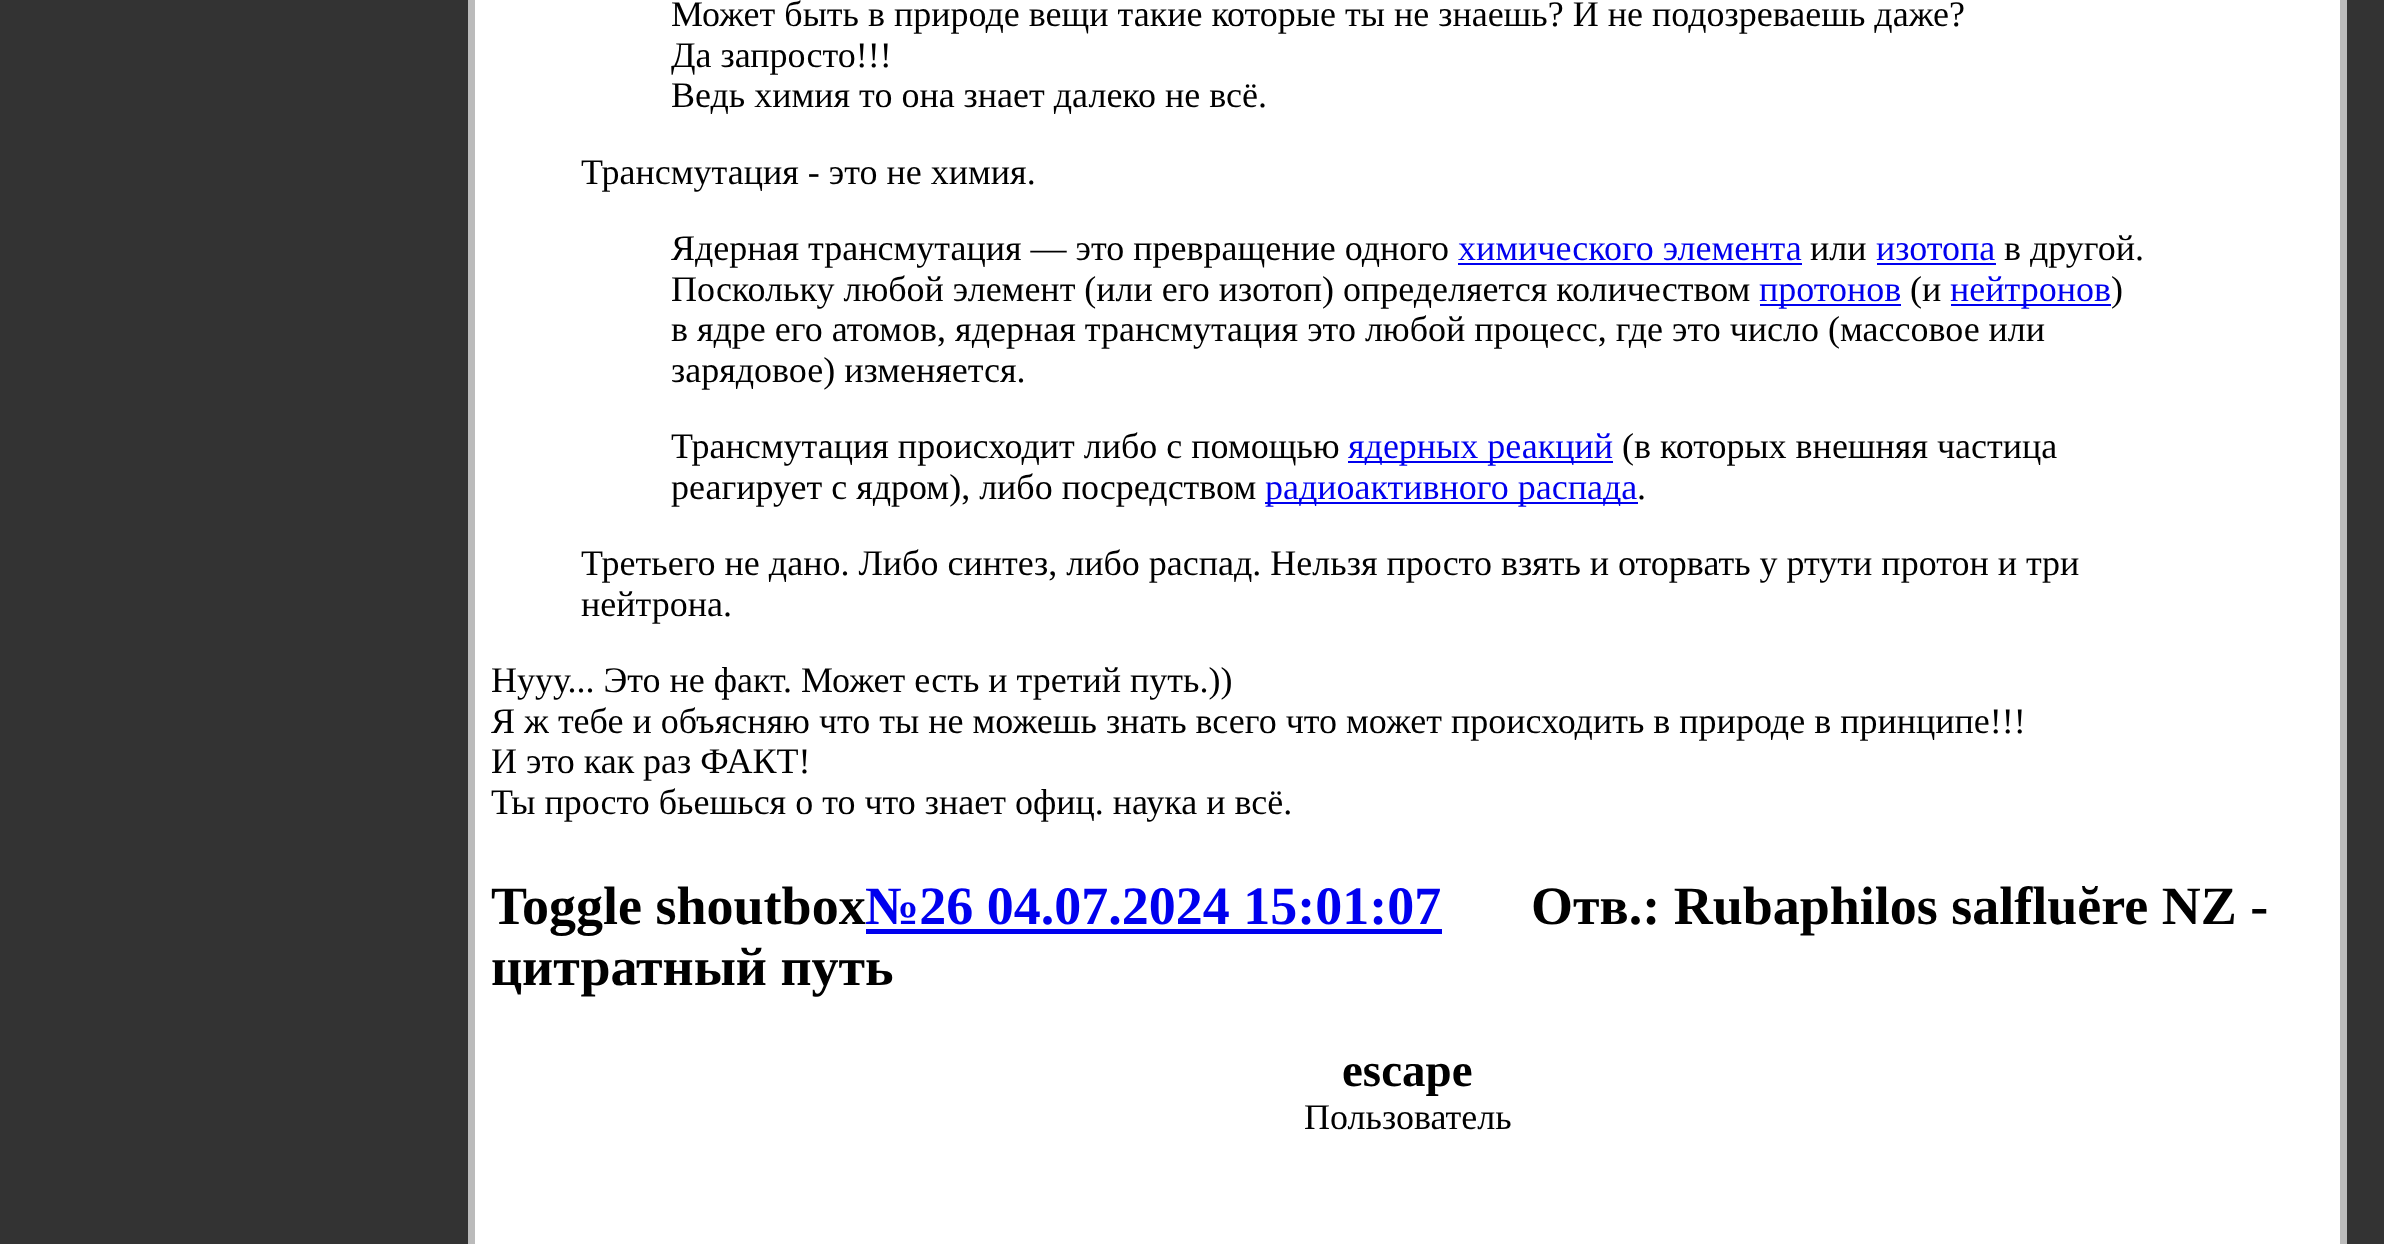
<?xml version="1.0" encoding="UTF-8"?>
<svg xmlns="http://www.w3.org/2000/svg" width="2384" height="1244">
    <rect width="100%" height="100%" fill="#333333"/>
    <rect x="471.5" y="-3.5" width="1872" height="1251" fill="#FFFFFF" stroke="#BBBBBB" stroke-width="7"/>
    <text font-family="Liberation Serif" font-size="36" fill="#000000">
        <tspan x="671" y="26">Может быть в природе вещи такие которые ты не знаешь? И не подозреваешь даже?</tspan>
        <tspan x="671" y="67">Да запросто!!!</tspan>
        <tspan x="671" y="107">Ведь химия то она знает далеко не всё.</tspan>
    </text>
    <text x="581" y="184" font-family="Liberation Serif" font-size="36" fill="#000000">Трансмутация - это не химия.</text>
    <text x="671" y="260" font-family="Liberation Serif" font-size="36" fill="#000000">Ядерная трансмутация — это превращение одного</text>
    <text x="1458" y="260" font-family="Liberation Serif" font-size="36" fill="#0000EE">химического элемента</text>
    <rect x="1458" y="263" width="344" height="2" fill="#0000EE"/>
    <text x="1810" y="260" font-family="Liberation Serif" font-size="36" fill="#000000">или</text>
    <text x="1876" y="260" font-family="Liberation Serif" font-size="36" fill="#0000EE">изотопа</text>
    <rect x="1877" y="263" width="119" height="2" fill="#0000EE"/>
    <text x="2004" y="260" font-family="Liberation Serif" font-size="36" fill="#000000">в другой.</text>
    <text x="671" y="301" font-family="Liberation Serif" font-size="36" fill="#000000">Поскольку любой элемент (или его изотоп) определяется количеством</text>
    <rect x="1760" y="304" width="141" height="2" fill="#0000EE"/>
    <text x="1759" y="301" font-family="Liberation Serif" font-size="36" fill="#0000EE">протонов</text>
    <text x="1910" y="301" font-family="Liberation Serif" font-size="36" fill="#000000">(и</text>
    <rect x="1951" y="304" width="160" height="2" fill="#0000EE"/>
    <text x="1950" y="301" font-family="Liberation Serif" font-size="36" fill="#0000EE">нейтронов</text>
    <text x="2111" y="301" font-family="Liberation Serif" font-size="36" fill="#000000">)</text>
    <text font-family="Liberation Serif" font-size="36" fill="#000000">
        <tspan x="671" y="341">в ядре его атомов, ядерная трансмутация это любой процесс, где это число (массовое или</tspan>
        <tspan x="671" y="382">зарядовое) изменяется.</tspan>
    </text>
    <text x="671" y="458" font-family="Liberation Serif" font-size="36" fill="#000000">Трансмутация происходит либо с помощью</text>
    <rect x="1348" y="461" width="265" height="2" fill="#0000EE"/>
    <text x="1348" y="458" font-family="Liberation Serif" font-size="36" fill="#0000EE">ядерных реакций</text>
    <text x="1622" y="458" font-family="Liberation Serif" font-size="36" fill="#000000">(в которых внешняя частица</text>
    <text x="671" y="499" font-family="Liberation Serif" font-size="36" fill="#000000">реагирует с ядром), либо посредством</text>
    <rect x="1265" y="502" width="373" height="2" fill="#0000EE"/>
    <text x="1265" y="499" font-family="Liberation Serif" font-size="36" fill="#0000EE">радиоактивного распада</text>
    <text x="1637" y="499" font-family="Liberation Serif" font-size="36" fill="#000000">.</text>
    <text font-family="Liberation Serif" font-size="36" fill="#000000">
        <tspan x="581" y="575">Третьего не дано. Либо синтез, либо распад. Нельзя просто взять и оторвать у ртути протон и три</tspan>
        <tspan x="581" y="616">нейтрона.</tspan>
    </text>
    <text font-family="Liberation Serif" font-size="36" fill="#000000">
        <tspan x="491" y="692">Нууу... Это не факт. Может есть и третий путь.))</tspan>
        <tspan x="491" y="733">Я ж тебе и объясняю что ты не можешь знать всего что может происходить в природе в принципе!!!</tspan>
        <tspan x="491" y="773">И это как раз ФАКТ!</tspan>
        <tspan x="491" y="814">Ты просто бьешься о то что знает офиц. наука и всё.</tspan>
    </text>
    <text x="491" y="924" font-family="Liberation Serif" font-size="54" font-weight="700" fill="#000000">Toggle shoutbox</text>
    <text x="865" y="924" font-family="Liberation Serif" font-size="54" font-weight="700" fill="#0000EE">№26 04.07.2024 15:01:07</text>
    <rect x="866" y="929" width="576" height="5" fill="#0000EE"/>
    <text x="1531" y="924" font-family="Liberation Serif" font-size="54" font-weight="700" fill="#000000">Отв.: Rubaphilos salfluĕre NZ -</text>
    <text x="491" y="985" font-family="Liberation Serif" font-size="54" font-weight="700" fill="#000000">цитратный путь</text>
    <text x="1342" y="1086" font-family="Liberation Serif" font-size="47" font-weight="700" fill="#000000">escape</text>
    <text x="1304" y="1129" font-family="Liberation Serif" font-size="36" fill="#000000">Пользователь</text>
</svg>
